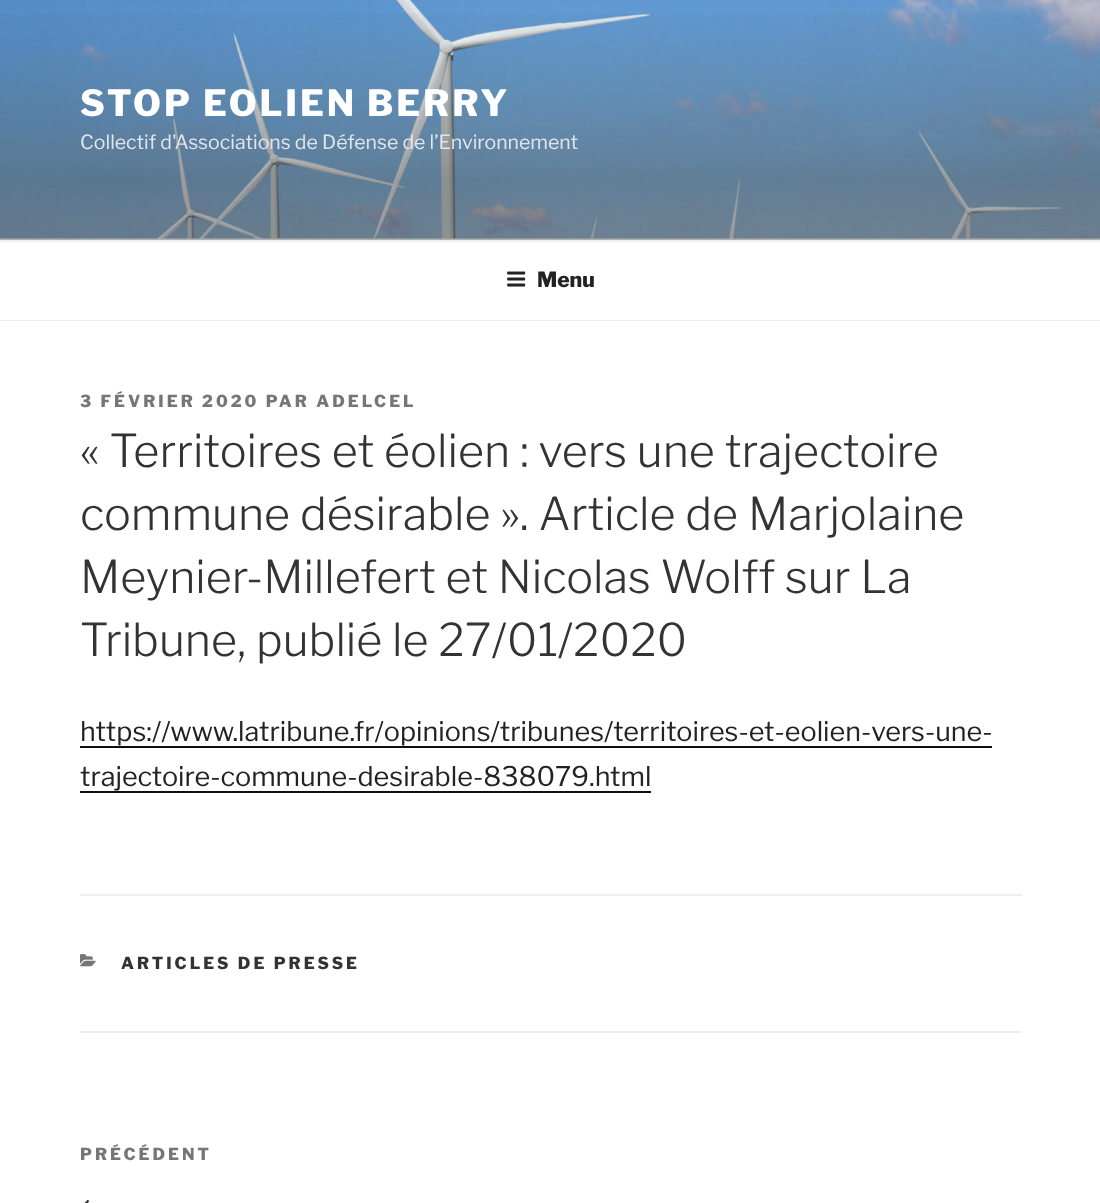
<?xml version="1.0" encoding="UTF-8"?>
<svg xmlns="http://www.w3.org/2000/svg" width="1100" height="1203">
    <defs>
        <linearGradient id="g1" gradientUnits="userSpaceOnUse" x1="551" y1="0" x2="551" y2="240"><stop offset="0" stop-color="#000000" stop-opacity="0"/><stop offset="0.75" stop-color="#000000" stop-opacity="0.3"/><stop offset="1" stop-color="#000000" stop-opacity="0.3"/></linearGradient>
    </defs>
    <rect width="100%" height="100%" fill="#FAFAFA"/>
    <image x="0" y="0" width="1100" height="239" href="img_01.png"/>
    <rect x="0" y="13" width="1100" height="227" fill="url(#g1)"/>
    <text x="80" y="116" font-family="Libre Franklin" font-size="36" font-weight="100" letter-spacing="2.9" fill="#FFFFFF">STOP EOLIEN BERRY</text>
    <text x="80" y="149" font-family="'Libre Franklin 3'" font-size="19.5" font-weight="100" fill="#E0E6EC">Collectif d'Associations de Défense de l’Environnement</text>
    <rect x="0" y="242" width="1100" height="78" fill="#FFFFFF"/>
    <rect x="0" y="240" width="1100" height="2" fill="#EEEEEE"/>
    <rect x="0" y="320" width="1100" height="1" fill="#EEEEEE"/>
    <image x="507" y="271" width="19" height="16" href="img_02.png"/>
    <text x="537" y="287" font-family="Libre Franklin" font-size="21" font-weight="100" fill="#222222">Menu</text>
    <rect x="0" y="321" width="1100" height="882" fill="#FFFFFF"/>
    <text x="80" y="407" font-family="Libre Franklin" font-size="16.5" font-weight="100" letter-spacing="3" fill="#767676">3 FÉVRIER 2020 PAR ADELCEL</text>
    <text font-family="'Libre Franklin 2'" font-size="45" font-weight="100" fill="#333333">
        <tspan x="80" y="467">« Territoires et éolien : vers une trajectoire</tspan>
        <tspan x="80" y="530">commune désirable ». Article de Marjolaine</tspan>
        <tspan x="80" y="593">Meynier-Millefert et Nicolas Wolff sur La</tspan>
        <tspan x="80" y="656">Tribune, publié le 27/01/2020</tspan>
    </text>
    <text x="80" y="741" font-family="'Libre Franklin 3'" font-size="27" font-weight="100" fill="#222222">https://www.latribune.fr/opinions/tribunes/territoires-et-eolien-vers-une-</text>
    <rect x="80" y="746" width="912" height="2" fill="#0F0F0F"/>
    <text x="80" y="786" font-family="'Libre Franklin 3'" font-size="27" font-weight="100" fill="#222222">trajectoire-commune-desirable-838079.html</text>
    <rect x="80" y="791" width="571" height="2" fill="#0F0F0F"/>
    <rect x="80" y="894" width="942" height="2" fill="#EEEEEE"/>
    <rect x="80" y="1031" width="942" height="2" fill="#EEEEEE"/>
    <image x="80" y="954" width="16" height="13" href="img_03.png"/>
    <text x="121" y="969" font-family="Libre Franklin" font-size="16.5" font-weight="100" letter-spacing="3" fill="#333333">ARTICLES DE PRESSE</text>
    <text x="80" y="1160" font-family="Libre Franklin" font-size="16.5" font-weight="100" letter-spacing="3" fill="#767676">PRÉCÉDENT</text>
    <image x="84" y="1199" width="6" height="4" href="img_04.png"/>
</svg>
